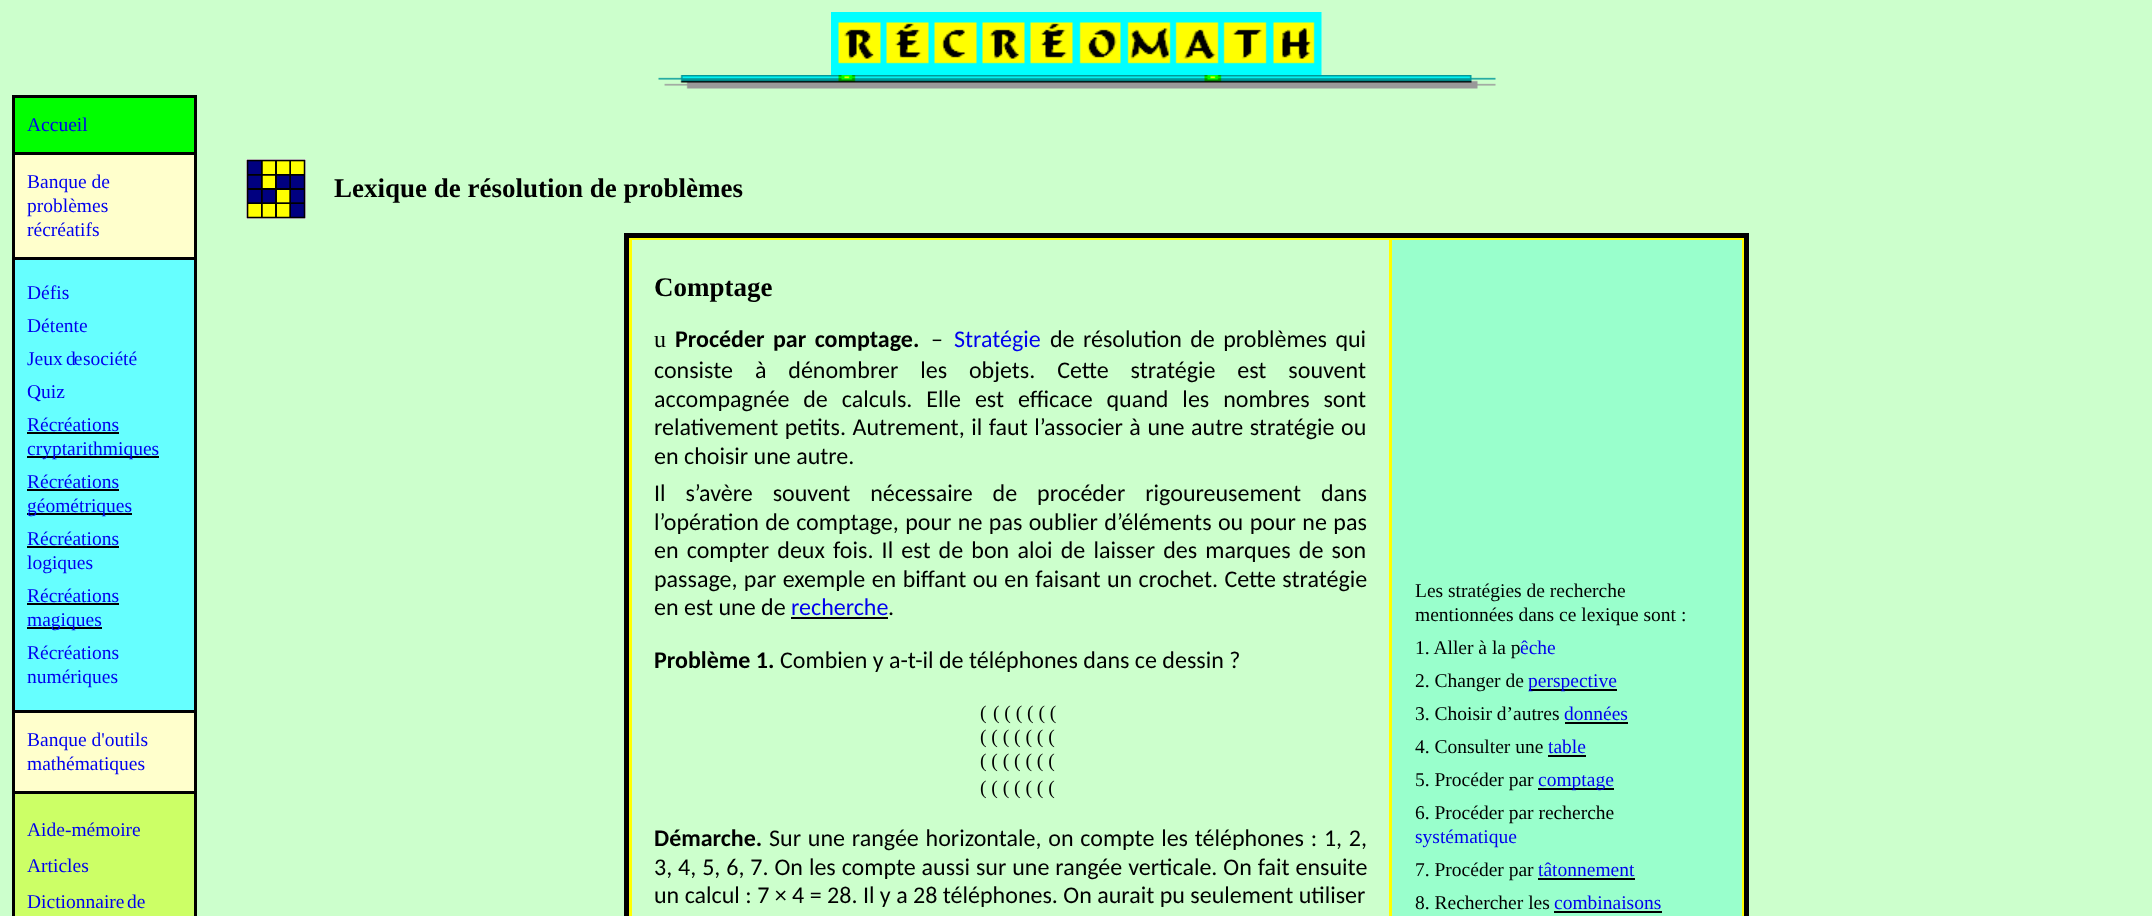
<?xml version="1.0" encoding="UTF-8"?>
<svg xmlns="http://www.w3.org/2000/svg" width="2152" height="916">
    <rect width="100%" height="100%" fill="#CCFFCC"/>
    <image x="831" y="12" width="491" height="63" href="img_01.png"/>
    <image x="658" y="75" width="838" height="14" href="img_02.png"/>
    <rect x="12" y="95" width="185" height="821" fill="#000000"/>
    <rect x="15" y="98" width="179" height="54" fill="#00FF00"/>
    <text x="27" y="131" font-family="Liberation Serif" font-size="19.5" fill="#0000EE">Accueil</text>
    <rect x="15" y="155" width="179" height="102" fill="#FFFFCC"/>
    <text font-family="Liberation Serif" font-size="19.5" fill="#0000EE">
        <tspan x="27" y="188">Banque de</tspan>
        <tspan x="27" y="212">problèmes</tspan>
        <tspan x="27" y="236">récréatifs</tspan>
    </text>
    <rect x="15" y="260" width="179" height="450" fill="#66FFFF"/>
    <text font-family="Liberation Serif" font-size="19.5" fill="#0000EE">
        <tspan x="27" y="299">Défis</tspan>
        <tspan x="27" y="332">Détente</tspan>
        <tspan x="27" y="365">Jeux</tspan>
    </text>
    <text x="66" y="365" font-family="Liberation Serif" font-size="19.5" letter-spacing="-2" fill="#0000EE">de</text>
    <text x="83" y="365" font-family="Liberation Serif" font-size="19.5" fill="#0000EE">société</text>
    <text font-family="Liberation Serif" font-size="19.5" fill="#0000EE">
        <tspan x="27" y="398">Quiz</tspan>
        <tspan x="27" y="431">Récréations</tspan>
    </text>
    <rect x="27" y="432" width="92" height="2" fill="#000000"/>
    <rect x="27" y="456" width="132" height="2" fill="#000000"/>
    <text font-family="Liberation Serif" font-size="19.5" fill="#0000EE">
        <tspan x="27" y="455">cryptarithmiques</tspan>
        <tspan x="27" y="488">Récréations</tspan>
    </text>
    <rect x="27" y="489" width="92" height="2" fill="#000000"/>
    <rect x="27" y="513" width="105" height="2" fill="#000000"/>
    <text font-family="Liberation Serif" font-size="19.5" fill="#0000EE">
        <tspan x="27" y="512">géométriques</tspan>
        <tspan x="27" y="545">Récréations</tspan>
    </text>
    <rect x="27" y="546" width="92" height="2" fill="#000000"/>
    <text font-family="Liberation Serif" font-size="19.5" fill="#0000EE">
        <tspan x="27" y="569">logiques</tspan>
        <tspan x="27" y="602">Récréations</tspan>
    </text>
    <rect x="27" y="603" width="92" height="2" fill="#000000"/>
    <rect x="27" y="627" width="75" height="2" fill="#000000"/>
    <text font-family="Liberation Serif" font-size="19.5" fill="#0000EE">
        <tspan x="27" y="626">magiques</tspan>
        <tspan x="27" y="659">Récréations</tspan>
        <tspan x="27" y="683">numériques</tspan>
    </text>
    <rect x="15" y="713" width="179" height="78" fill="#FFFFCC"/>
    <text font-family="Liberation Serif" font-size="19.5" fill="#0000EE">
        <tspan x="27" y="746">Banque d'outils</tspan>
        <tspan x="27" y="770">mathématiques</tspan>
    </text>
    <rect x="15" y="794" width="179" height="122" fill="#CCFF66"/>
    <text font-family="Liberation Serif" font-size="19.5" fill="#0000EE">
        <tspan x="27" y="836">Aide-mémoire</tspan>
        <tspan x="27" y="872">Articles</tspan>
        <tspan x="27" y="908">Dictionnaire</tspan>
    </text>
    <text x="127" y="908" font-family="Liberation Serif" font-size="19.5" fill="#0000EE">de</text>
    <image x="246" y="159" width="60" height="60" href="img_03.png"/>
    <text x="334" y="197" font-family="Liberation Serif" font-size="27" font-weight="700" fill="#000000">Lexique de résolution de problèmes</text>
    <rect x="626.5" y="235.5" width="1120" height="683" fill="#FFFF00" stroke="#000000" stroke-width="5"/>
    <rect x="632" y="240" width="757" height="676" fill="#CCFFCC"/>
    <text x="654" y="296" font-family="Liberation Serif" font-size="27" font-weight="700" fill="#000000">Comptage</text>
    <text x="654" y="347" font-family="Liberation Serif" font-size="24" fill="#000000">u</text>
    <text x="675" y="347" word-spacing="3" font-family="Carlito" font-size="24" font-weight="700" fill="#000000">Procéder par comptage.</text>
    <text x="931" y="347" font-family="Carlito" font-size="24" fill="#000000">–</text>
    <text x="954" y="347" font-family="Carlito" font-size="24" fill="#0000EE">Stratégie</text>
    <text x="1050" y="347" word-spacing="3" font-family="Carlito" font-size="24" fill="#000000">de résolution de problèmes qui</text>
    <text font-family="Carlito" font-size="24" fill="#000000">
        <tspan x="654" y="378" word-spacing="16.5">consiste à dénombrer les objets. Cette stratégie est souvent</tspan>
        <tspan x="654" y="407" word-spacing="8.5">accompagnée de calculs. Elle est efficace quand les nombres sont</tspan>
        <tspan x="654" y="435" word-spacing="1.1">relativement petits. Autrement, il faut l’associer à une autre stratégie ou</tspan>
        <tspan x="654" y="464">en choisir une autre.</tspan>
        <tspan x="654" y="501" word-spacing="14.5">Il s’avère souvent nécessaire de procéder rigoureusement dans</tspan>
        <tspan x="654" y="530" word-spacing="1">l’opération de comptage, pour ne pas oublier d’éléments ou pour ne pas</tspan>
        <tspan x="654" y="558" word-spacing="2.75">en compter deux fois. Il est de bon aloi de laisser des marques de son</tspan>
        <tspan x="654" y="587" word-spacing="1">passage, par exemple en biffant ou en faisant un crochet. Cette stratégie</tspan>
        <tspan x="654" y="615">en est une de</tspan>
    </text>
    <text x="791" y="615" font-family="Carlito" font-size="24" fill="#0000EE">recherche</text>
    <text x="888" y="615" font-family="Carlito" font-size="24" fill="#000000">.</text>
    <rect x="791" y="617" width="97" height="2" fill="#000000"/>
    <text x="654" y="668" font-family="Carlito" font-size="24" font-weight="700" fill="#000000">Problème 1.</text>
    <text x="780" y="668" font-family="Carlito" font-size="24" fill="#000000">Combien y a-t-il de téléphones dans ce dessin ?</text>
    <text x="980" y="719" font-family="Liberation Serif" font-size="19.5" fill="#000000">(</text>
    <text x="993" y="719" font-family="Liberation Serif" font-size="19.5" fill="#000000">( ( ( ( ( (</text>
    <text font-family="Liberation Serif" font-size="19.5" fill="#000000">
        <tspan x="980" y="743">( ( ( ( ( ( (</tspan>
        <tspan x="980" y="767">( ( ( ( ( ( (</tspan>
        <tspan x="980" y="794">( ( ( ( ( ( (</tspan>
    </text>
    <text x="654" y="846" font-family="Carlito" font-size="24" font-weight="700" fill="#000000">Démarche.</text>
    <text x="769" y="846" word-spacing="1.4" font-family="Carlito" font-size="24" fill="#000000">Sur une rangée horizontale, on compte les téléphones : 1, 2,</text>
    <text font-family="Carlito" font-size="24" fill="#000000">
        <tspan x="654" y="875" word-spacing="0.5">3, 4, 5, 6, 7. On les compte aussi sur une rangée verticale. On fait ensuite</tspan>
        <tspan x="654" y="903">un calcul : 7 × 4 = 28. Il y a 28 téléphones. On aurait pu seulement utiliser</tspan>
    </text>
    <rect x="1392" y="240" width="350" height="676" fill="#99FFCC"/>
    <text font-family="Liberation Serif" font-size="19.5" fill="#000000">
        <tspan x="1415" y="597">Les stratégies de recherche</tspan>
        <tspan x="1415" y="621">mentionnées dans ce lexique sont :</tspan>
        <tspan x="1415" y="654">1. Aller à la p</tspan>
    </text>
    <text x="1520" y="654" font-family="Liberation Serif" font-size="19.5" fill="#0000EE">êche</text>
    <text x="1415" y="687" font-family="Liberation Serif" font-size="19.5" fill="#000000">2. Changer de</text>
    <rect x="1529" y="689" width="88" height="2" fill="#000000"/>
    <text x="1528" y="687" font-family="Liberation Serif" font-size="19.5" fill="#0000EE">perspective</text>
    <text x="1415" y="720" font-family="Liberation Serif" font-size="19.5" fill="#000000">3. Choisir d’autres</text>
    <text x="1564" y="720" font-family="Liberation Serif" font-size="19.5" fill="#0000EE">données</text>
    <rect x="1565" y="722" width="63" height="2" fill="#000000"/>
    <text x="1415" y="753" font-family="Liberation Serif" font-size="19.5" fill="#000000">4. Consulter une</text>
    <text x="1548" y="753" font-family="Liberation Serif" font-size="19.5" fill="#0000EE">table</text>
    <rect x="1548" y="755" width="38" height="2" fill="#000000"/>
    <text x="1415" y="786" font-family="Liberation Serif" font-size="19.5" fill="#000000">5. Procéder par</text>
    <rect x="1538" y="788" width="76" height="2" fill="#000000"/>
    <text x="1538" y="786" font-family="Liberation Serif" font-size="19.5" fill="#0000EE">comptage</text>
    <text x="1415" y="819" font-family="Liberation Serif" font-size="19.5" fill="#000000">6. Procéder par recherche</text>
    <text x="1415" y="843" font-family="Liberation Serif" font-size="19.5" fill="#0000EE">systématique</text>
    <text x="1415" y="876" font-family="Liberation Serif" font-size="19.5" fill="#000000">7. Procéder par</text>
    <text x="1538" y="876" font-family="Liberation Serif" font-size="19.5" fill="#0000EE">tâtonnement</text>
    <rect x="1538" y="878" width="97" height="2" fill="#000000"/>
    <text x="1415" y="909" font-family="Liberation Serif" font-size="19.5" fill="#000000">8. Rechercher les</text>
    <text x="1554" y="909" font-family="Liberation Serif" font-size="19.5" fill="#0000EE">combinaisons</text>
    <rect x="1554" y="911" width="108" height="2" fill="#000000"/>
</svg>
